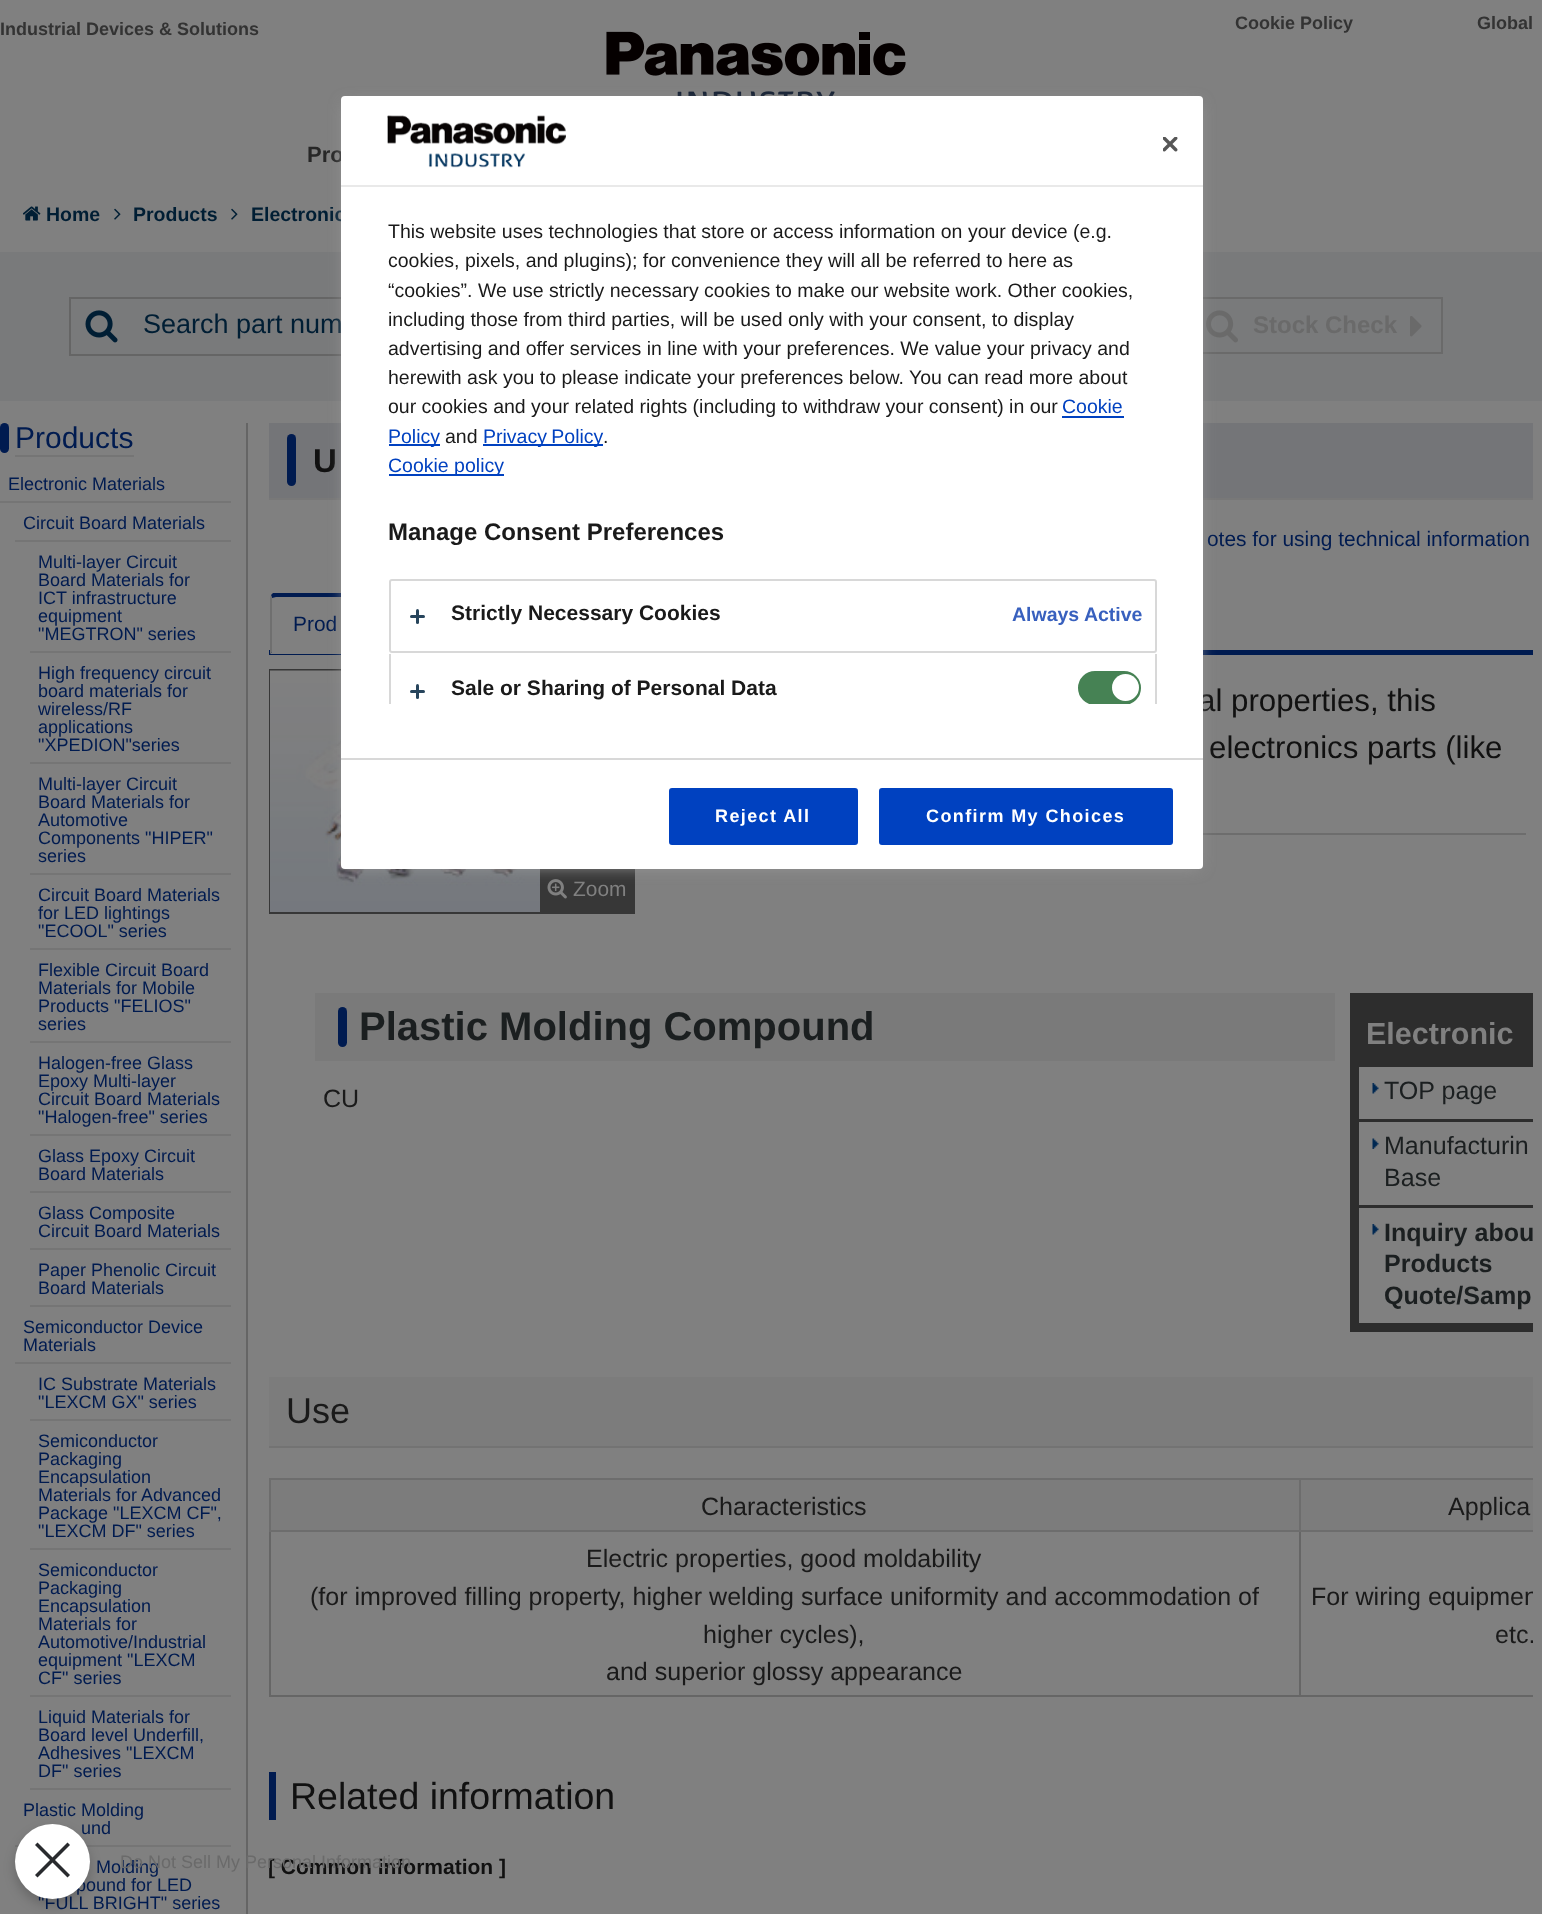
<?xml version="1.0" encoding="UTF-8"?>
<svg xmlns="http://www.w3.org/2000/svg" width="1542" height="1914">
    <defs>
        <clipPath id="clip1"><rect x="269" y="593" width="214" height="61"/></clipPath>
        <clipPath id="clip2"><rect x="269" y="918" width="1264" height="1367"/></clipPath>
        <filter id="blur1" x="-50%" y="-200%" width="200%" height="500%"><feGaussianBlur stdDeviation="7.5"/></filter>
        <clipPath id="clip3"><rect x="386" y="188" width="816" height="516"/></clipPath>
        <filter id="blur2" x="-50%" y="-200%" width="200%" height="500%"><feGaussianBlur stdDeviation="6"/></filter>
    </defs>
    <rect width="100%" height="100%" fill="#808080"/>
    <text x="0" y="35" font-family="Liberation Sans" font-size="18" font-weight="700" fill="#333333">Industrial Devices &amp; Solutions</text>
    <text x="1235" y="29" font-family="Liberation Sans" font-size="18" font-weight="700" fill="#333333">Cookie Policy</text>
    <text x="1477" y="29" font-family="Liberation Sans" font-size="18" font-weight="700" fill="#333333">Global</text>
    <image x="606" y="31" width="300" height="65" href="img_01.png"/>
    <text x="307" y="162" font-family="Liberation Sans" font-size="22" font-weight="700" fill="#272727">Pro</text>
    <image x="23" y="206" width="18" height="15" href="img_02.png"/>
    <text x="46" y="221" font-family="Liberation Sans" font-size="19.5" font-weight="700" fill="#001E34">Home</text>
    <image x="114" y="208" width="7" height="12" href="img_03.png"/>
    <text x="133" y="221" font-family="Liberation Sans" font-size="19.5" font-weight="700" fill="#001E34">Products</text>
    <image x="231" y="208" width="7" height="12" href="img_03.png"/>
    <text x="251" y="221" font-family="Liberation Sans" font-size="19.5" font-weight="700" fill="#001E34">Electronic</text>
    <rect x="0" y="252" width="1542" height="149" fill="#797A7B"/>
    <rect x="70" y="298" width="804" height="57" fill="none" stroke="#656565" stroke-width="2"/>
    <image x="85" y="310" width="33" height="33" href="img_04.png"/>
    <text x="143" y="333" font-family="Liberation Sans" font-size="27" fill="#001E34">Search part num</text>
    <rect x="1188" y="298" width="254" height="55" fill="none" stroke="#6A6A6A" stroke-width="2"/>
    <image x="1206" y="310" width="32" height="33" href="img_05.png"/>
    <text x="1253" y="333" font-family="Liberation Sans" font-size="24" font-weight="700" fill="#6A6A6A">Stock Check</text>
    <image x="1410" y="316" width="12" height="21" href="img_06.png"/>
    <rect x="246" y="423" width="2" height="1491" fill="#656565"/>
    <rect x="0" y="423" width="9" height="30" rx="4.5" fill="#001B50"/>
    <text x="15" y="448" font-family="Liberation Sans" font-size="30" fill="#001B50">Products</text>
    <rect x="15" y="455" width="119" height="2" fill="#757575"/>
    <rect x="0" y="501" width="231" height="2" fill="#757575"/>
    <text x="8" y="490" font-family="Liberation Sans" font-size="18" fill="#001B50">Electronic Materials</text>
    <rect x="15" y="540" width="216" height="2" fill="#757575"/>
    <text x="23" y="529" font-family="Liberation Sans" font-size="18" fill="#001B50">Circuit Board Materials</text>
    <rect x="30" y="651" width="201" height="2" fill="#757575"/>
    <text font-family="Liberation Sans" font-size="18" fill="#001B50">
        <tspan x="38" y="568">Multi-layer Circuit</tspan>
        <tspan x="38" y="586">Board Materials for</tspan>
        <tspan x="38" y="604">ICT infrastructure</tspan>
        <tspan x="38" y="622">equipment</tspan>
        <tspan x="38" y="640">"MEGTRON" series</tspan>
    </text>
    <rect x="30" y="762" width="201" height="2" fill="#757575"/>
    <text font-family="Liberation Sans" font-size="18" fill="#001B50">
        <tspan x="38" y="679">High frequency circuit</tspan>
        <tspan x="38" y="697">board materials for</tspan>
        <tspan x="38" y="715">wireless/RF</tspan>
        <tspan x="38" y="733">applications</tspan>
        <tspan x="38" y="751">"XPEDION"series</tspan>
    </text>
    <rect x="30" y="873" width="201" height="2" fill="#757575"/>
    <text font-family="Liberation Sans" font-size="18" fill="#001B50">
        <tspan x="38" y="790">Multi-layer Circuit</tspan>
        <tspan x="38" y="808">Board Materials for</tspan>
        <tspan x="38" y="826">Automotive</tspan>
        <tspan x="38" y="844">Components "HIPER"</tspan>
        <tspan x="38" y="862">series</tspan>
    </text>
    <rect x="30" y="948" width="201" height="2" fill="#757575"/>
    <text font-family="Liberation Sans" font-size="18" fill="#001B50">
        <tspan x="38" y="901">Circuit Board Materials</tspan>
        <tspan x="38" y="919">for LED lightings</tspan>
        <tspan x="38" y="937">"ECOOL" series</tspan>
    </text>
    <rect x="30" y="1041" width="201" height="2" fill="#757575"/>
    <text font-family="Liberation Sans" font-size="18" fill="#001B50">
        <tspan x="38" y="976">Flexible Circuit Board</tspan>
        <tspan x="38" y="994">Materials for Mobile</tspan>
        <tspan x="38" y="1012">Products "FELIOS"</tspan>
        <tspan x="38" y="1030">series</tspan>
    </text>
    <rect x="30" y="1134" width="201" height="2" fill="#757575"/>
    <text font-family="Liberation Sans" font-size="18" fill="#001B50">
        <tspan x="38" y="1069">Halogen-free Glass</tspan>
        <tspan x="38" y="1087">Epoxy Multi-layer</tspan>
        <tspan x="38" y="1105">Circuit Board Materials</tspan>
        <tspan x="38" y="1123">"Halogen-free" series</tspan>
    </text>
    <rect x="30" y="1191" width="201" height="2" fill="#757575"/>
    <text font-family="Liberation Sans" font-size="18" fill="#001B50">
        <tspan x="38" y="1162">Glass Epoxy Circuit</tspan>
        <tspan x="38" y="1180">Board Materials</tspan>
    </text>
    <rect x="30" y="1248" width="201" height="2" fill="#757575"/>
    <text font-family="Liberation Sans" font-size="18" fill="#001B50">
        <tspan x="38" y="1219">Glass Composite</tspan>
        <tspan x="38" y="1237">Circuit Board Materials</tspan>
    </text>
    <rect x="30" y="1305" width="201" height="2" fill="#757575"/>
    <text font-family="Liberation Sans" font-size="18" fill="#001B50">
        <tspan x="38" y="1276">Paper Phenolic Circuit</tspan>
        <tspan x="38" y="1294">Board Materials</tspan>
    </text>
    <rect x="15" y="1362" width="216" height="2" fill="#757575"/>
    <text font-family="Liberation Sans" font-size="18" fill="#001B50">
        <tspan x="23" y="1333">Semiconductor Device</tspan>
        <tspan x="23" y="1351">Materials</tspan>
    </text>
    <rect x="30" y="1419" width="201" height="2" fill="#757575"/>
    <text font-family="Liberation Sans" font-size="18" fill="#001B50">
        <tspan x="38" y="1390">IC Substrate Materials</tspan>
        <tspan x="38" y="1408">"LEXCM GX" series</tspan>
    </text>
    <rect x="30" y="1548" width="201" height="2" fill="#757575"/>
    <text font-family="Liberation Sans" font-size="18" fill="#001B50">
        <tspan x="38" y="1447">Semiconductor</tspan>
        <tspan x="38" y="1465">Packaging</tspan>
        <tspan x="38" y="1483">Encapsulation</tspan>
        <tspan x="38" y="1501">Materials for Advanced</tspan>
        <tspan x="38" y="1519">Package "LEXCM CF",</tspan>
        <tspan x="38" y="1537">"LEXCM DF" series</tspan>
    </text>
    <rect x="30" y="1695" width="201" height="2" fill="#757575"/>
    <text font-family="Liberation Sans" font-size="18" fill="#001B50">
        <tspan x="38" y="1576">Semiconductor</tspan>
        <tspan x="38" y="1594">Packaging</tspan>
        <tspan x="38" y="1612">Encapsulation</tspan>
        <tspan x="38" y="1630">Materials for</tspan>
        <tspan x="38" y="1648">Automotive/Industrial</tspan>
        <tspan x="38" y="1666">equipment "LEXCM</tspan>
        <tspan x="38" y="1684">CF" series</tspan>
    </text>
    <rect x="30" y="1788" width="201" height="2" fill="#757575"/>
    <text font-family="Liberation Sans" font-size="18" fill="#001B50">
        <tspan x="38" y="1723">Liquid Materials for</tspan>
        <tspan x="38" y="1741">Board level Underfill,</tspan>
        <tspan x="38" y="1759">Adhesives "LEXCM</tspan>
        <tspan x="38" y="1777">DF" series</tspan>
    </text>
    <rect x="15" y="1845" width="216" height="2" fill="#757575"/>
    <text x="23" y="1816" font-family="Liberation Sans" font-size="18" fill="#001B50">Plastic Molding</text>
    <text x="81" y="1834" font-family="Liberation Sans" font-size="18" fill="#001B50">und</text>
    <text x="96" y="1873" font-family="Liberation Sans" font-size="18" fill="#001B50">Molding</text>
    <text x="76" y="1891" font-family="Liberation Sans" font-size="18" fill="#001B50">pound for LED</text>
    <text x="38" y="1909" font-family="Liberation Sans" font-size="18" fill="#001B50">"FULL BRIGHT" series</text>
    <rect x="269" y="423" width="1264" height="75" fill="#747578"/>
    <rect x="269" y="498" width="1264" height="2" fill="#787878"/>
    <rect x="287" y="434" width="9" height="52" rx="4.5" fill="#001B50"/>
    <text x="313" y="472" font-family="Liberation Sans" font-size="33" font-weight="700" fill="#111111">U</text>
    <text x="1207" y="546" font-family="Liberation Sans" font-size="20.9" fill="#001B50">otes for using technical information</text>
    <rect x="269" y="650" width="1264" height="5" fill="#001B50"/>
    <path d="M 276 597 H 476 C 478 597 480 598 480 598 V 652 H 272 V 598 C 272 598 274 597 276 597 Z" fill="#808080"/>
    <g clip-path="url(#clip1)">
        <path d="M 276 597 L 272 598 L 271 595 L 273 593 L 444 592 C 457 592 473 585 481 595 L 480 598 L 476 597 Z" fill="#001B50"/>
    </g>
    <path d="M 482 654 L 480 652 H 272 L 270 654 Z" fill="#808080"/>
    <path d="M 270 654 L 272 652 V 598 L 271 595 L 270 598 Z" fill="#6F6F6F"/>
    <text x="293" y="631" font-family="Liberation Sans" font-size="20.9" fill="#001B50">Prod</text>
    <rect x="1203" y="833" width="323" height="2" fill="#6D6D6D"/>
    <text x="1198" y="711" font-family="Liberation Sans" font-size="31.25" fill="#111111">al properties, this</text>
    <text x="1209" y="758" font-family="Liberation Sans" font-size="31.25" fill="#111111">electronics parts (like</text>
    <rect x="270" y="670" width="364" height="243" fill="none" stroke="#373737" stroke-width="2"/>
    <image x="270" y="670" width="270" height="242" href="img_07.png"/>
    <rect x="540" y="869" width="93" height="43" fill="#373737"/>
    <image x="547" y="879" width="20" height="20" href="img_08.png"/>
    <text x="573" y="896" font-family="Liberation Sans" font-size="20.9" fill="#808080">Zoom</text>
    <rect x="315" y="993" width="1020" height="68" fill="#7A7A7A"/>
    <rect x="338" y="1007" width="9" height="40" rx="4.5" fill="#001B50"/>
    <text x="359" y="1040" font-family="Liberation Sans" font-size="40" font-weight="700" fill="#1B1F20">Plastic Molding Compound</text>
    <text x="323" y="1107" font-family="Liberation Sans" font-size="25.05" fill="#1A1A1A">CU</text>
    <rect x="1350" y="993" width="183" height="339" fill="#2D2D2D"/>
    <text x="1366" y="1044" font-family="Liberation Sans" font-size="30.5" font-weight="700" fill="#808080">Electronic</text>
    <rect x="1359" y="1067" width="174" height="52" fill="#808080"/>
    <image x="1372" y="1083" width="7" height="11" href="img_09.png"/>
    <text x="1384" y="1099" font-family="Liberation Sans" font-size="25.05" fill="#1B1F20">TOP page</text>
    <rect x="1359" y="1122" width="174" height="83" fill="#808080"/>
    <image x="1372" y="1138" width="7" height="11" href="img_10.png"/>
    <text font-family="Liberation Sans" font-size="25.05" fill="#1B1F20">
        <tspan x="1384" y="1154">Manufacturin</tspan>
        <tspan x="1384" y="1186">Base</tspan>
    </text>
    <rect x="1359" y="1208" width="174" height="115" fill="#808080"/>
    <image x="1372" y="1224" width="7" height="11" href="img_09.png"/>
    <text font-family="Liberation Sans" font-size="25.05" font-weight="700" fill="#1B1F20">
        <tspan x="1384" y="1241">Inquiry abou</tspan>
        <tspan x="1384" y="1272">Products</tspan>
        <tspan x="1384" y="1304">Quote/Samp</tspan>
    </text>
    <rect x="269" y="1377" width="1264" height="69" fill="#7C7C7C"/>
    <rect x="269" y="1446" width="1264" height="2" fill="#737373"/>
    <text x="286" y="1423" font-family="Liberation Sans" font-size="36" fill="#1A1A1A">Use</text>
    <rect x="269" y="1695" width="1264" height="2" fill="#666666"/>
    <rect x="269" y="1532" width="2" height="165" fill="#666666"/>
    <rect x="271" y="1480" width="1028" height="50" fill="#7C7C7C"/>
    <rect x="1299" y="1478" width="234" height="2" fill="#6D6D6D"/>
    <rect x="1299" y="1530" width="2" height="167" fill="#666666"/>
    <rect x="1299" y="1530" width="234" height="2" fill="#6D6D6D"/>
    <rect x="1299" y="1478" width="2" height="54" fill="#6D6D6D"/>
    <rect x="269" y="1478" width="1032" height="2" fill="#6D6D6D"/>
    <rect x="269" y="1530" width="1032" height="2" fill="#6D6D6D"/>
    <rect x="269" y="1478" width="2" height="54" fill="#6D6D6D"/>
    <text x="701" y="1515" font-family="Liberation Sans" font-size="25.05" fill="#1A1A1A">Characteristics</text>
    <rect x="1301" y="1480" width="232" height="50" fill="#7C7C7C"/>
    <text x="1448" y="1515" font-family="Liberation Sans" font-size="25.05" fill="#1A1A1A">Applica</text>
    <text x="586" y="1567" font-family="Liberation Sans" font-size="25.05" fill="#1A1A1A">Electric properties, good moldability</text>
    <text x="310" y="1605" font-family="Liberation Sans" font-size="25.05" fill="#1A1A1A">(for improved filling property, higher welding surface uniformity and accommodation of</text>
    <text x="703" y="1643" font-family="Liberation Sans" font-size="25.05" fill="#1A1A1A">higher cycles),</text>
    <text x="606" y="1680" font-family="Liberation Sans" font-size="25.05" fill="#1A1A1A">and superior glossy appearance</text>
    <g clip-path="url(#clip2)">
        <text x="1311" y="1605" font-family="Liberation Sans" font-size="25.05" fill="#1A1A1A">For wiring equipmen</text>
        <text x="1495" y="1643" font-family="Liberation Sans" font-size="25.05" fill="#1A1A1A">etc.</text>
    </g>
    <rect x="269" y="1772" width="7" height="48" fill="#001B50"/>
    <text x="290" y="1809" font-family="Liberation Sans" font-size="37.5" fill="#111111">Related information</text>
    <text x="268" y="1874" font-family="Liberation Sans" font-size="21" font-weight="700" fill="#111111">[ Common information ]</text>
    <rect x="345" y="104" width="854" height="763" fill="#999999" filter="url(#blur1)"/>
    <rect x="341" y="96" width="862" height="773" rx="4" fill="#FFFFFF"/>
    <rect x="341" y="185" width="862" height="2" fill="#E9E9E9"/>
    <image x="387" y="115" width="179" height="53" href="img_11.png"/>
    <image x="1163" y="137" width="15" height="15" href="img_12.png"/>
    <text font-family="Liberation Sans" font-size="19.5" fill="#1A1A1A">
        <tspan x="388" y="238">This website uses technologies that store or access information on your device (e.g.</tspan>
        <tspan x="388" y="267">cookies, pixels, and plugins); for convenience they will all be referred to here as</tspan>
        <tspan x="388" y="297">“cookies”. We use strictly necessary cookies to make our website work. Other cookies,</tspan>
        <tspan x="388" y="326">including those from third parties, will be used only with your consent, to display</tspan>
        <tspan x="388" y="355">advertising and offer services in line with your preferences. We value your privacy and</tspan>
        <tspan x="388" y="384">herewith ask you to please indicate your preferences below. You can read more about</tspan>
        <tspan x="388" y="413">our cookies and your related rights (including to withdraw your consent) in our</tspan>
    </text>
    <text x="1062" y="413" font-family="Liberation Sans" font-size="19.5" fill="#0041C0">Cookie</text>
    <rect x="1062" y="416" width="62" height="2" fill="#0041C0"/>
    <rect x="389" y="444" width="51" height="2" fill="#0041C0"/>
    <text x="388" y="443" font-family="Liberation Sans" font-size="19.5" fill="#0041C0">Policy</text>
    <text x="445" y="443" font-family="Liberation Sans" font-size="19.5" fill="#1A1A1A">and</text>
    <rect x="483" y="444" width="120" height="2" fill="#0041C0"/>
    <text x="483" y="443" word-spacing="-1" font-family="Liberation Sans" font-size="19.5" fill="#0041C0">Privacy Policy</text>
    <text x="603" y="443" font-family="Liberation Sans" font-size="19.5" fill="#1A1A1A">.</text>
    <rect x="389" y="474" width="115" height="2" fill="#0041C0"/>
    <text x="388" y="472" font-family="Liberation Sans" font-size="19.5" fill="#0041C0">Cookie policy</text>
    <text x="388" y="540" font-family="Liberation Sans" font-size="24" font-weight="700" fill="#1A1A1A">Manage Consent Preferences</text>
    <rect x="390" y="580" width="766" height="72" rx="2" fill="none" stroke="#D8D8D8" stroke-width="2"/>
    <rect x="416" y="609" width="3" height="15" rx="1.5" fill="#27455C"/>
    <rect x="410" y="615" width="15" height="3" rx="1.5" fill="#27455C"/>
    <text x="451" y="620" font-family="Liberation Sans" font-size="21" font-weight="700" fill="#1A1A1A">Strictly Necessary Cookies</text>
    <text x="1012" y="621" font-family="Liberation Sans" font-size="19.5" font-weight="700" fill="#3860BE">Always Active</text>
    <rect x="1155" y="654" width="2" height="50" fill="#D8D8D8"/>
    <rect x="389" y="654" width="2" height="50" fill="#D8D8D8"/>
    <rect x="416" y="684" width="3" height="15" rx="1.5" fill="#27455C"/>
    <rect x="410" y="690" width="15" height="3" rx="1.5" fill="#27455C"/>
    <text x="451" y="695" font-family="Liberation Sans" font-size="21" font-weight="700" fill="#1A1A1A">Sale or Sharing of Personal Data</text>
    <g clip-path="url(#clip3)">
        <rect x="1077" y="670" width="65" height="36" rx="18" fill="#468254" stroke="#FFFFFF" stroke-width="2"/>
    </g>
    <circle cx="1125.5" cy="687.5" r="13.5" fill="#FFFFFF"/>
    <rect x="341" y="758" width="862" height="2" fill="#D8D8D8"/>
    <rect x="670" y="789" width="187" height="55" rx="2" fill="#0041C0" stroke="#0041C0" stroke-width="2"/>
    <text x="715" y="822" font-family="Liberation Sans" font-size="18" font-weight="700" letter-spacing="1.4" fill="#FFFFFF">Reject All</text>
    <rect x="880" y="789" width="292" height="55" rx="2" fill="#0041C0" stroke="#0041C0" stroke-width="2"/>
    <text x="926" y="822" font-family="Liberation Sans" font-size="18" font-weight="700" letter-spacing="1.4" fill="#FFFFFF">Confirm My Choices</text>
    <rect x="15" y="1830" width="75" height="75" rx="37.5" fill="#000000" fill-opacity="0.2" filter="url(#blur2)"/>
    <circle cx="52.5" cy="1861.5" r="37.5" fill="#FFFFFF"/>
    <path d="M 35 1845 L 67.5 1877.5 L 70 1875 L 37.5 1842.5 Z" fill="#292B2E"/>
    <path d="M 70 1845 L 37.5 1877.5 L 35 1875 L 67.5 1842.5 Z" fill="#292B2E"/>
    <text x="120" y="1868" font-family="Liberation Sans" font-size="18" fill="#6A6A6A">Do Not Sell My Personal Information</text>
</svg>
